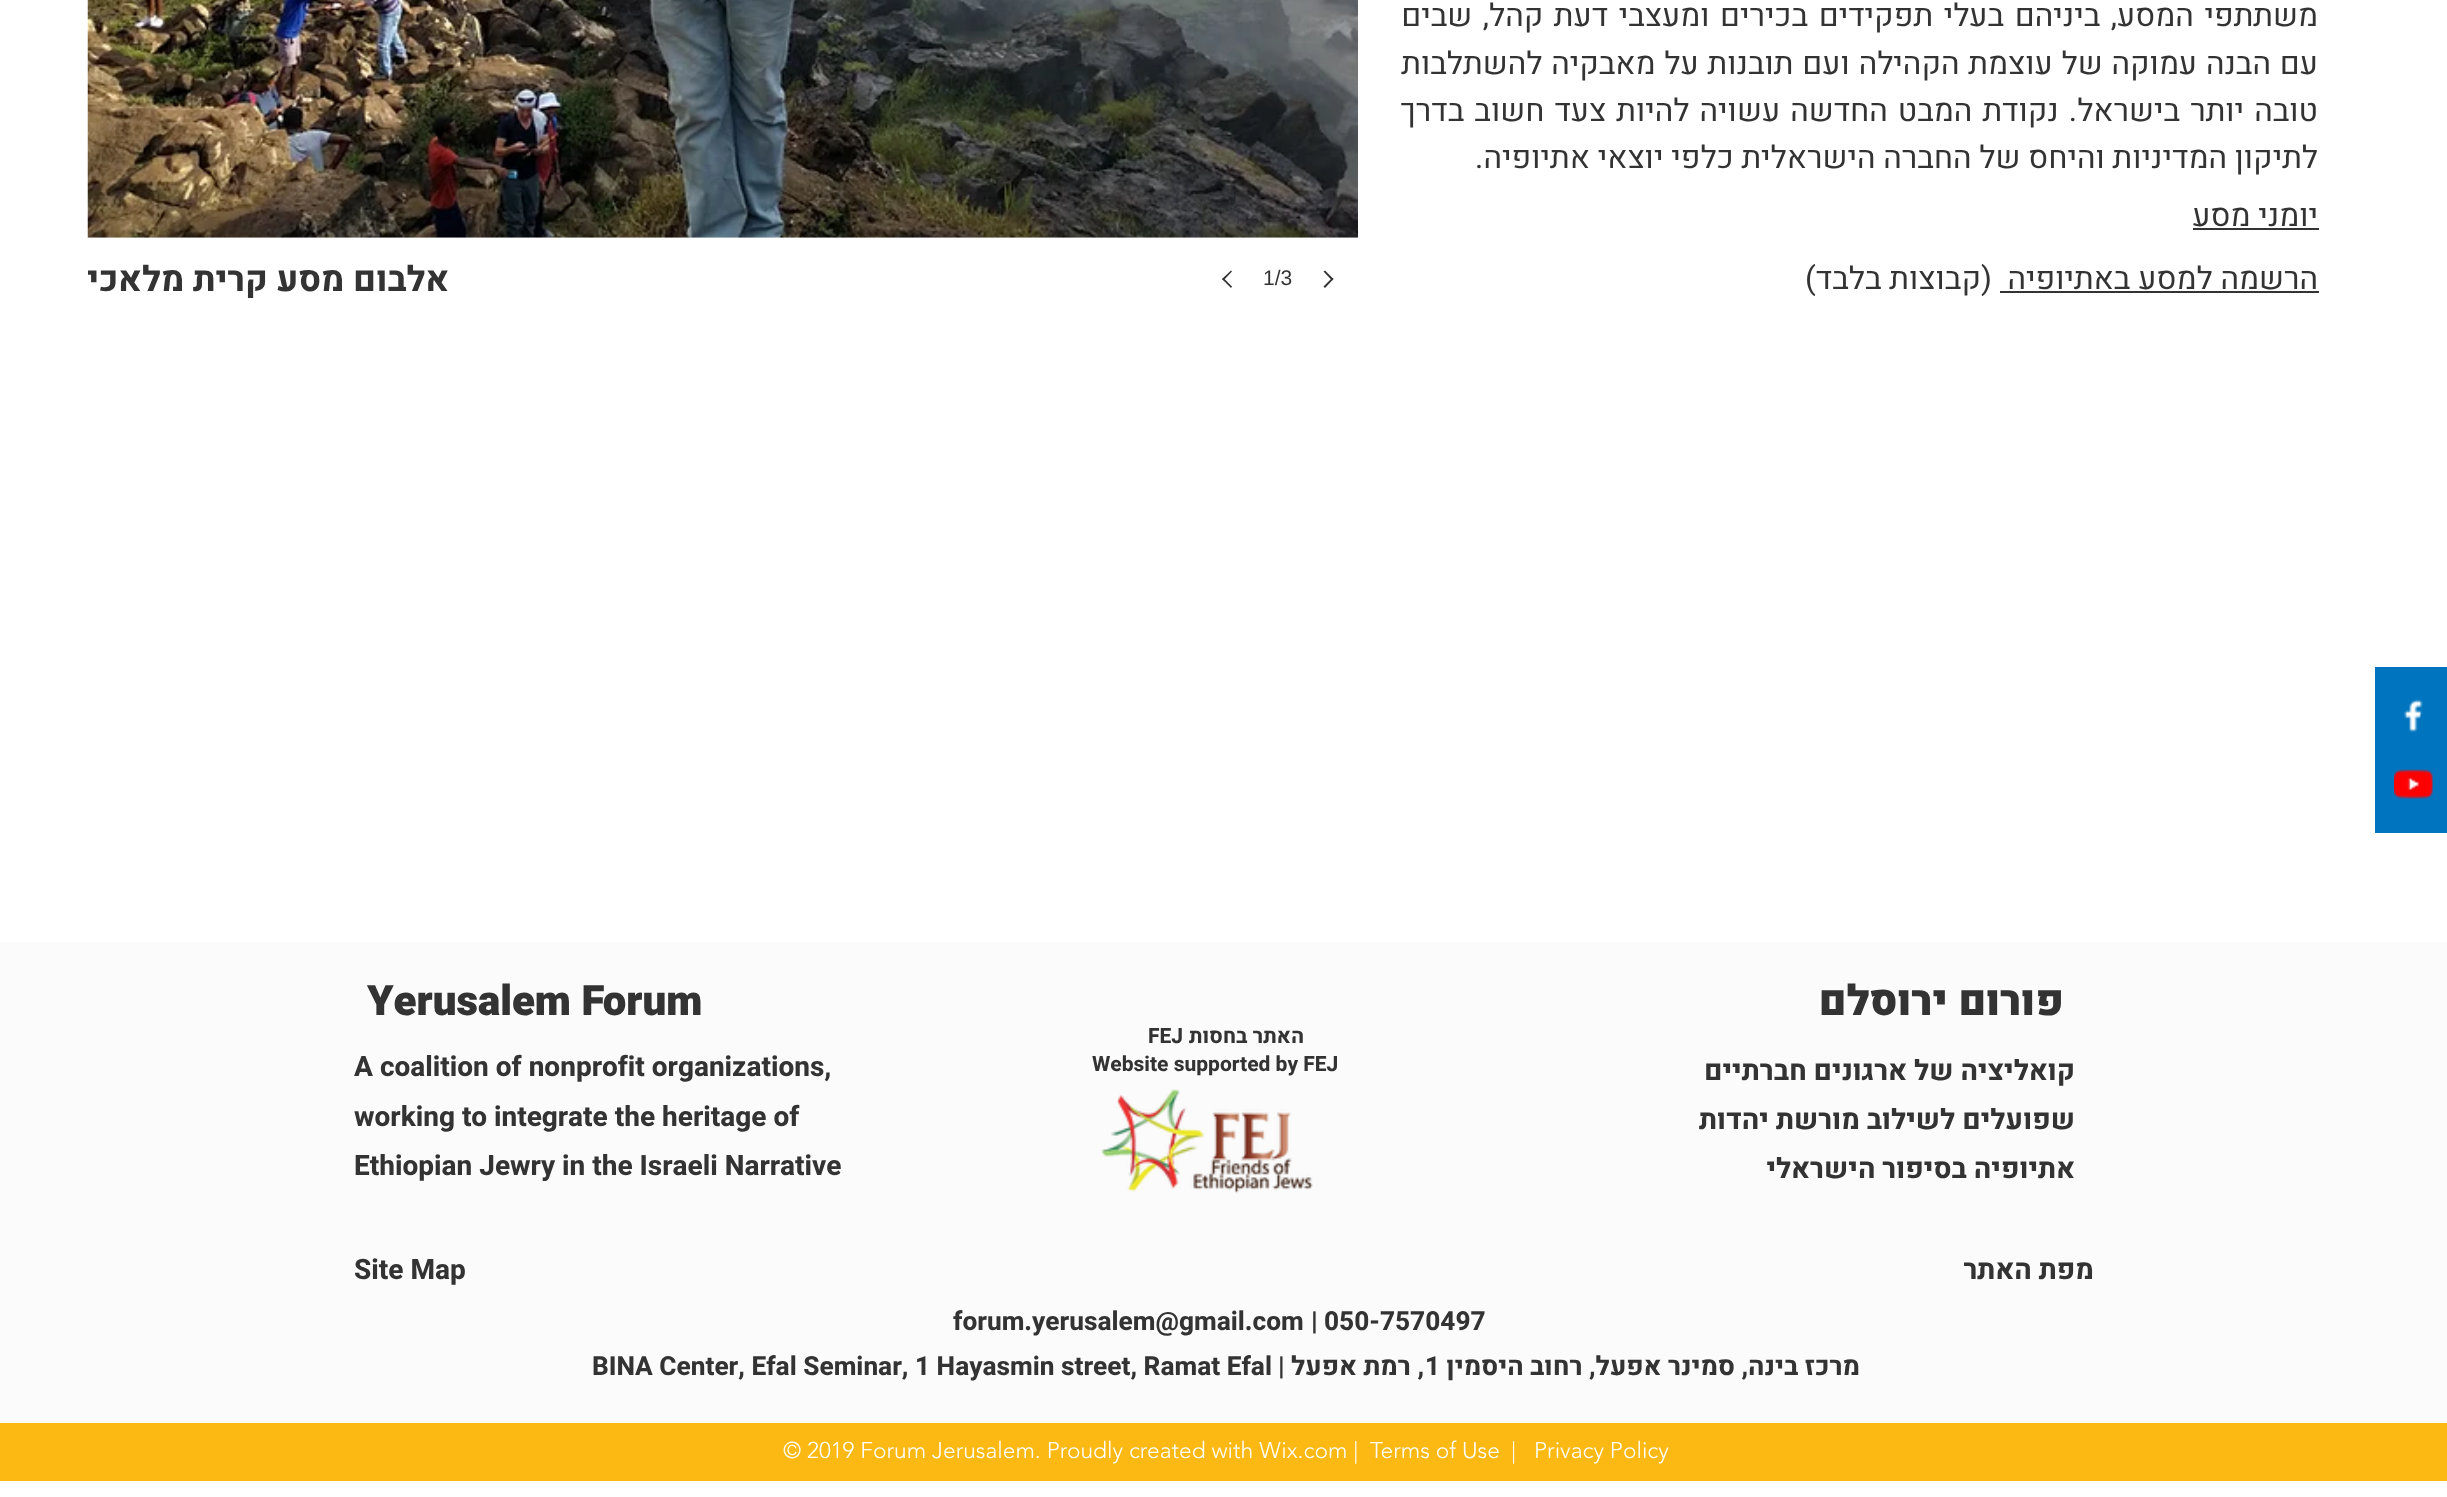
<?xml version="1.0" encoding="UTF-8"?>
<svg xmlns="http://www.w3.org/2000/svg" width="2447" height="1497">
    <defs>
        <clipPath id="clip1"><rect x="88" y="256" width="1043" height="49"/></clipPath>
    </defs>
    <rect width="100%" height="100%" fill="#FFFFFF"/>
    <text font-family="Heebo" font-size="31.5" direction="rtl" fill="#333333">
        <tspan x="2318" y="26" word-spacing="2.75">משתתפי המסע, ביניהם בעלי תפקידים בכירים ומעצבי דעת קהל, שבים</tspan>
        <tspan x="2318" y="74" word-spacing="1">עם הבנה עמוקה של עוצמת הקהילה ועם תובנות על מאבקיה להשתלבות</tspan>
        <tspan x="2318" y="121" word-spacing="2.25">טובה יותר בישראל. נקודת המבט החדשה עשויה להיות צעד חשוב בדרך</tspan>
        <tspan x="2318" y="168">לתיקון המדיניות והיחס של החברה הישראלית כלפי יוצאי אתיופיה.</tspan>
        <tspan x="2318" y="226">יומני מסע</tspan>
    </text>
    <rect x="2193" y="228" width="126" height="2" fill="#333333"/>
    <text x="2318" y="289" font-family="Heebo" font-size="31.5" direction="rtl" fill="#333333">הרשמה למסע באתיופיה</text>
    <rect x="2000" y="291" width="319" height="2" fill="#333333"/>
    <text x="1992" y="289" font-family="Heebo" font-size="31.5" direction="rtl" fill="#333333">(קבוצות בלבד)</text>
    <path d="M 1323.5 271.5 L 1325 270.5 L 1333.5 279 L 1332 280.5 Z" fill="#333333"/>
    <path d="M 1323.5 286.5 L 1332 278 L 1333.5 279 L 1325 288 Z" fill="#333333"/>
    <text x="1263" y="285" font-family="Liberation Sans" font-size="21" fill="#333333">1/3</text>
    <path d="M 1222 279 L 1231 270.5 L 1232 271.5 L 1223.5 280.5 Z" fill="#333333"/>
    <path d="M 1222 279 L 1223.5 278 L 1232 286.5 L 1231 288 Z" fill="#333333"/>
    <image x="87" y="0" width="1271" height="238" href="img_01.png"/>
    <g clip-path="url(#clip1)">
        <text x="449" y="291" font-family="Heebo" font-size="35" font-weight="700" direction="rtl" fill="#333333">אלבום מסע קרית מלאכי</text>
    </g>
    <rect x="2375" y="667" width="72" height="166" fill="#0074BE"/>
    <image x="2404" y="699" width="19" height="34" href="img_02.png"/>
    <image x="2394" y="769" width="39" height="30" href="img_03.png"/>
    <rect x="0" y="942" width="2447" height="481" fill="#FBFBFB"/>
    <text x="2064" y="1015" font-family="Heebo" font-size="42" font-weight="900" direction="rtl" fill="#333333">פורום ירוסלם</text>
    <text x="367" y="1015" font-family="Heebo" font-size="42" font-weight="900" fill="#333333">Yerusalem Forum</text>
    <text x="1304" y="1043" font-family="Heebo" font-size="21" font-weight="700" direction="rtl" fill="#333333">האתר בחסות</text>
    <text x="1148" y="1043" font-family="Heebo" font-size="21" font-weight="700" fill="#333333">FEJ</text>
    <text font-family="Heebo" font-size="28" font-weight="700" direction="rtl" fill="#333333">
        <tspan x="2075" y="1080">קואליציה של ארגונים חברתיים</tspan>
        <tspan x="2075" y="1129">שפועלים לשילוב מורשת יהדות</tspan>
        <tspan x="2075" y="1178">אתיופיה בסיפור הישראלי</tspan>
    </text>
    <text x="1092" y="1071" font-family="Heebo" font-size="21" font-weight="700" fill="#333333">Website supported by FEJ</text>
    <text font-family="Heebo" font-size="28" font-weight="700" fill="#333333">
        <tspan x="354" y="1076">A coalition of nonprofit organizations,</tspan>
        <tspan x="354" y="1126">working to integrate the heritage of</tspan>
        <tspan x="354" y="1175">Ethiopian Jewry in the Israeli Narrative</tspan>
    </text>
    <image x="1101" y="1089" width="212" height="105" href="img_04.png"/>
    <text x="2094" y="1279" font-family="Heebo" font-size="28" font-weight="700" direction="rtl" fill="#333333">מפת האתר</text>
    <text x="354" y="1279" font-family="Heebo" font-size="28" font-weight="700" fill="#333333">Site Map</text>
    <text x="1324" y="1330" font-family="Heebo" font-size="26.25" font-weight="700" fill="#333333">050-7570497</text>
    <text x="1311" y="1330" font-family="Heebo" font-size="26.25" font-weight="900" fill="#333333">|</text>
    <text x="953" y="1330" font-family="Heebo" font-size="26.25" font-weight="700" fill="#333333">forum.yerusalem@gmail.com</text>
    <text x="1860" y="1375" font-family="Heebo" font-size="26.25" font-weight="700" direction="rtl" fill="#333333">מרכז בינה, סמינר אפעל, רחוב היסמין</text>
    <text x="1425" y="1375" font-family="Heebo" font-size="26.25" font-weight="700" fill="#333333">1</text>
    <text x="1424" y="1375" font-family="Heebo" font-size="26.25" font-weight="700" direction="rtl" fill="#333333">, רמת אפעל |</text>
    <text x="592" y="1375" font-family="Heebo" font-size="26.25" font-weight="700" fill="#333333">BINA Center, Efal Seminar, 1 Hayasmin street, Ramat Efal</text>
    <rect x="0" y="1423" width="2447" height="58" fill="#FDB913"/>
    <text x="1534" y="1458" font-family="'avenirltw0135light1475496'" font-size="22.75" font-weight="300" fill="#FFFFFF">Privacy Policy</text>
    <text x="1511" y="1458" font-family="'avenirltw0135light1475496'" font-size="22.75" font-weight="300" fill="#FFFFFF">|</text>
    <text x="1370" y="1458" font-family="'avenirltw0135light1475496'" font-size="22.75" font-weight="300" fill="#FFFFFF">Terms of Use</text>
    <text x="783" y="1458" font-family="'avenirltw0135light1475496'" font-size="22.75" font-weight="300" fill="#FFFFFF">© 2019 Forum Jerusalem. Proudly created with Wix.com |</text>
</svg>
